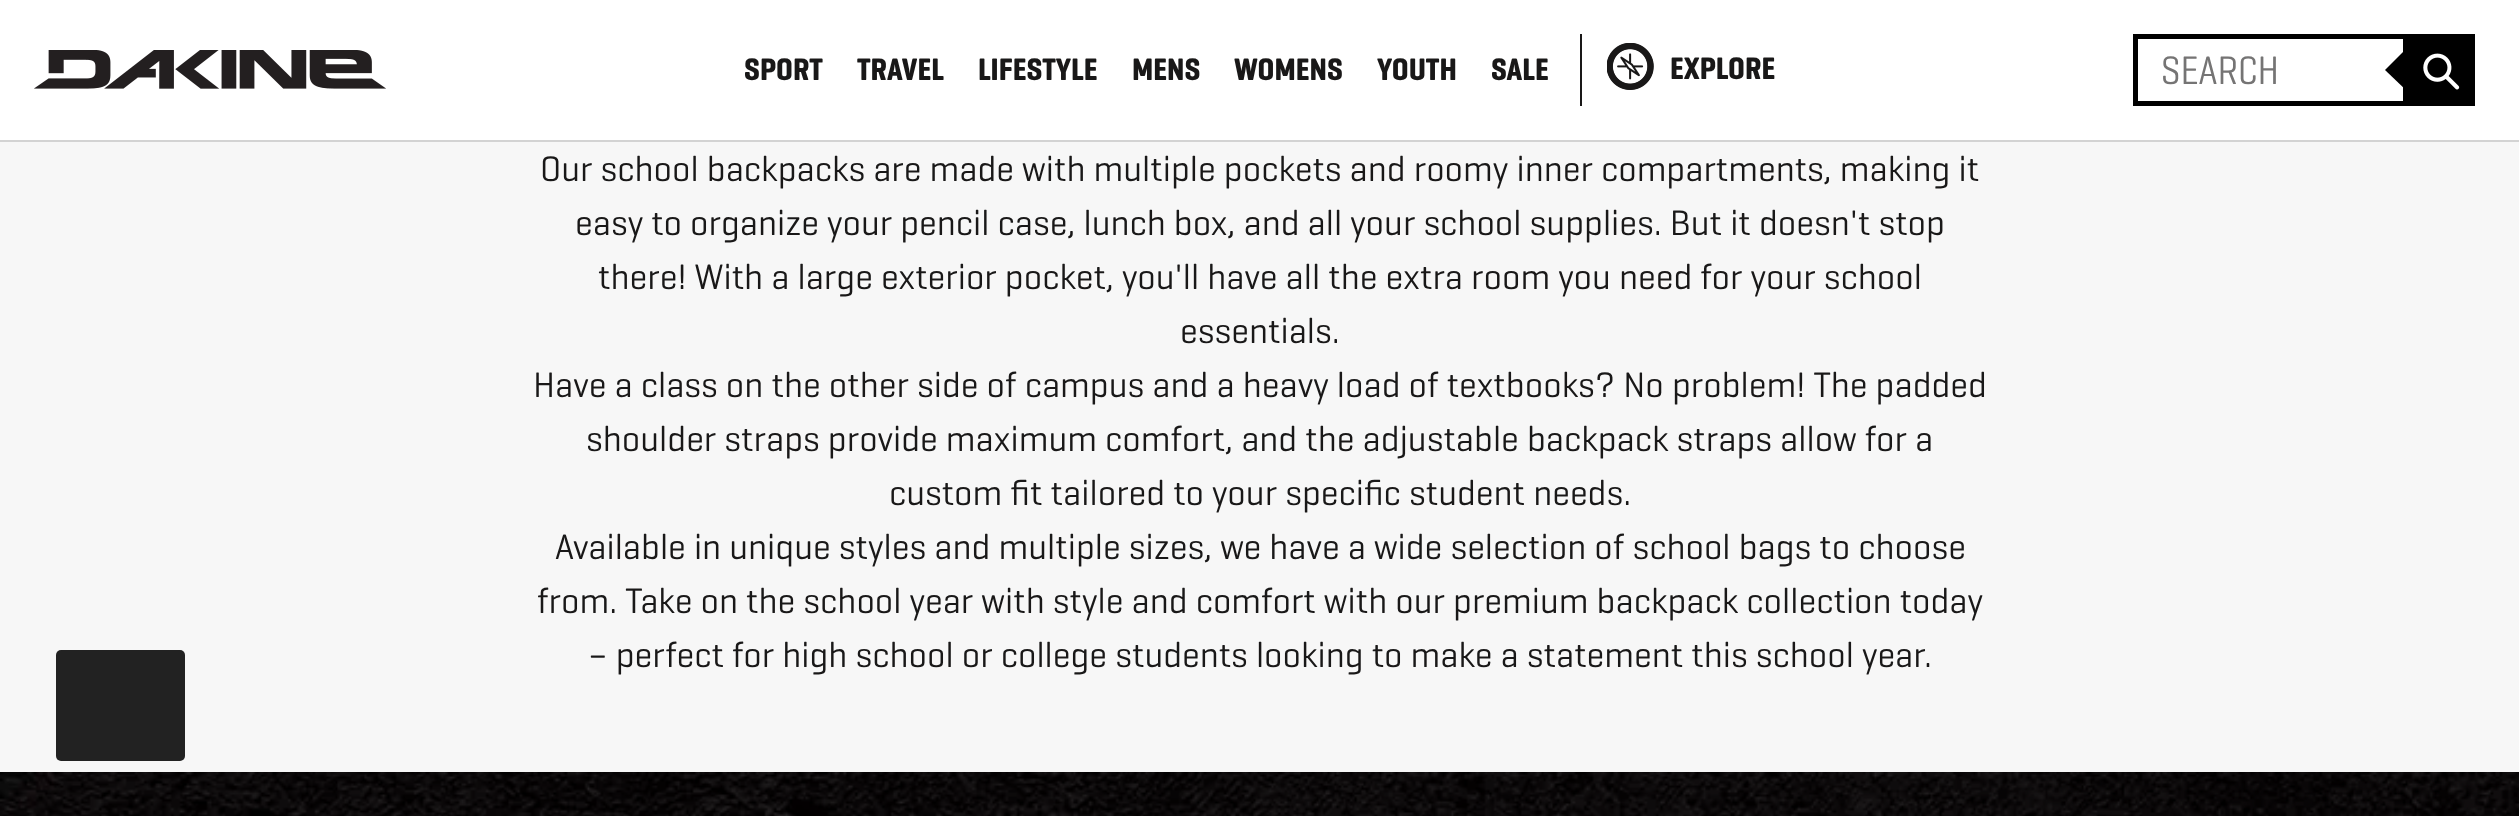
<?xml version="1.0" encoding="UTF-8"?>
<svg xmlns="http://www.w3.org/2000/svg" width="2519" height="816">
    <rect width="100%" height="100%" fill="#F7F7F7"/>
    <rect x="0" y="0" width="2519" height="140" fill="#FFFFFF"/>
    <rect x="0" y="140" width="2519" height="2" fill="#D3D3D3"/>
    <image x="34" y="50" width="352" height="39" href="img_01.png"/>
    <text x="744" y="80" font-family="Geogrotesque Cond" font-size="31.5" font-weight="700" fill="#191818">SPORT</text>
    <text x="857" y="80" font-family="Geogrotesque Cond" font-size="31.5" font-weight="700" fill="#191818">TRAVEL</text>
    <text x="978" y="80" font-family="Geogrotesque Cond" font-size="31.5" font-weight="700" fill="#191818">LIFESTYLE</text>
    <text x="1132" y="80" font-family="Geogrotesque Cond" font-size="31.5" font-weight="700" fill="#191818">MENS</text>
    <text x="1234" y="80" font-family="Geogrotesque Cond" font-size="31.5" font-weight="700" fill="#191818">WOMENS</text>
    <text x="1377" y="80" font-family="Geogrotesque Cond" font-size="31.5" font-weight="700" fill="#191818">YOUTH</text>
    <text x="1491" y="80" font-family="Geogrotesque Cond" font-size="31.5" font-weight="700" fill="#191818">SALE</text>
    <rect x="1580" y="34" width="2" height="72" fill="#191818"/>
    <image x="1607" y="43" width="47" height="47" href="img_02.png"/>
    <text x="1670" y="79" font-family="Geogrotesque Cond" font-size="31.5" font-weight="700" fill="#191818">EXPLORE</text>
    <rect x="2135.5" y="36.5" width="270" height="67" fill="none" stroke="#000000" stroke-width="5"/>
    <text x="2161" y="84" font-family="Geogrotesque Cond" font-size="40.5" fill="#757474">SEARCH</text>
    <rect x="2408" y="34" width="67" height="72" fill="#000000"/>
    <path d="M 2408 47 V 92 L 2385 70 Z" fill="#000000"/>
    <image x="2423" y="53" width="37" height="37" href="img_03.png"/>
    <text x="540" y="181" font-family="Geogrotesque" font-size="36" fill="#191818">Our school backpacks are made with multiple pockets and roomy inner compartments, making it</text>
    <text x="575" y="235" font-family="Geogrotesque" font-size="36" fill="#191818">easy to organize your pencil case, lunch box, and all your school supplies. But it doesn't stop</text>
    <text x="598" y="289" font-family="Geogrotesque" font-size="36" fill="#191818">there! With a large exterior pocket, you'll have all the extra room you need for your school</text>
    <text x="1180" y="343" font-family="Geogrotesque" font-size="36" fill="#191818">essentials.</text>
    <text x="533" y="397" font-family="Geogrotesque" font-size="36" fill="#191818">Have a class on the other side of campus and a heavy load of textbooks? No problem! The padded</text>
    <text x="586" y="451" font-family="Geogrotesque" font-size="36" fill="#191818">shoulder straps provide maximum comfort, and the adjustable backpack straps allow for a</text>
    <text x="889" y="505" font-family="Geogrotesque" font-size="36" fill="#191818">custom fit tailored to your specific student needs.</text>
    <text x="555" y="559" font-family="Geogrotesque" font-size="36" fill="#191818">Available in unique styles and multiple sizes, we have a wide selection of school bags to choose</text>
    <text x="537" y="613" font-family="Geogrotesque" font-size="36" fill="#191818">from. Take on the school year with style and comfort with our premium backpack collection today</text>
    <text x="588" y="667" font-family="Geogrotesque" font-size="36" fill="#191818">– perfect for high school or college students looking to make a statement this school year.</text>
    <image x="0" y="772" width="2519" height="44" href="img_04.png"/>
    <rect x="56" y="650" width="129" height="111" rx="5" fill="#222222"/>
</svg>
